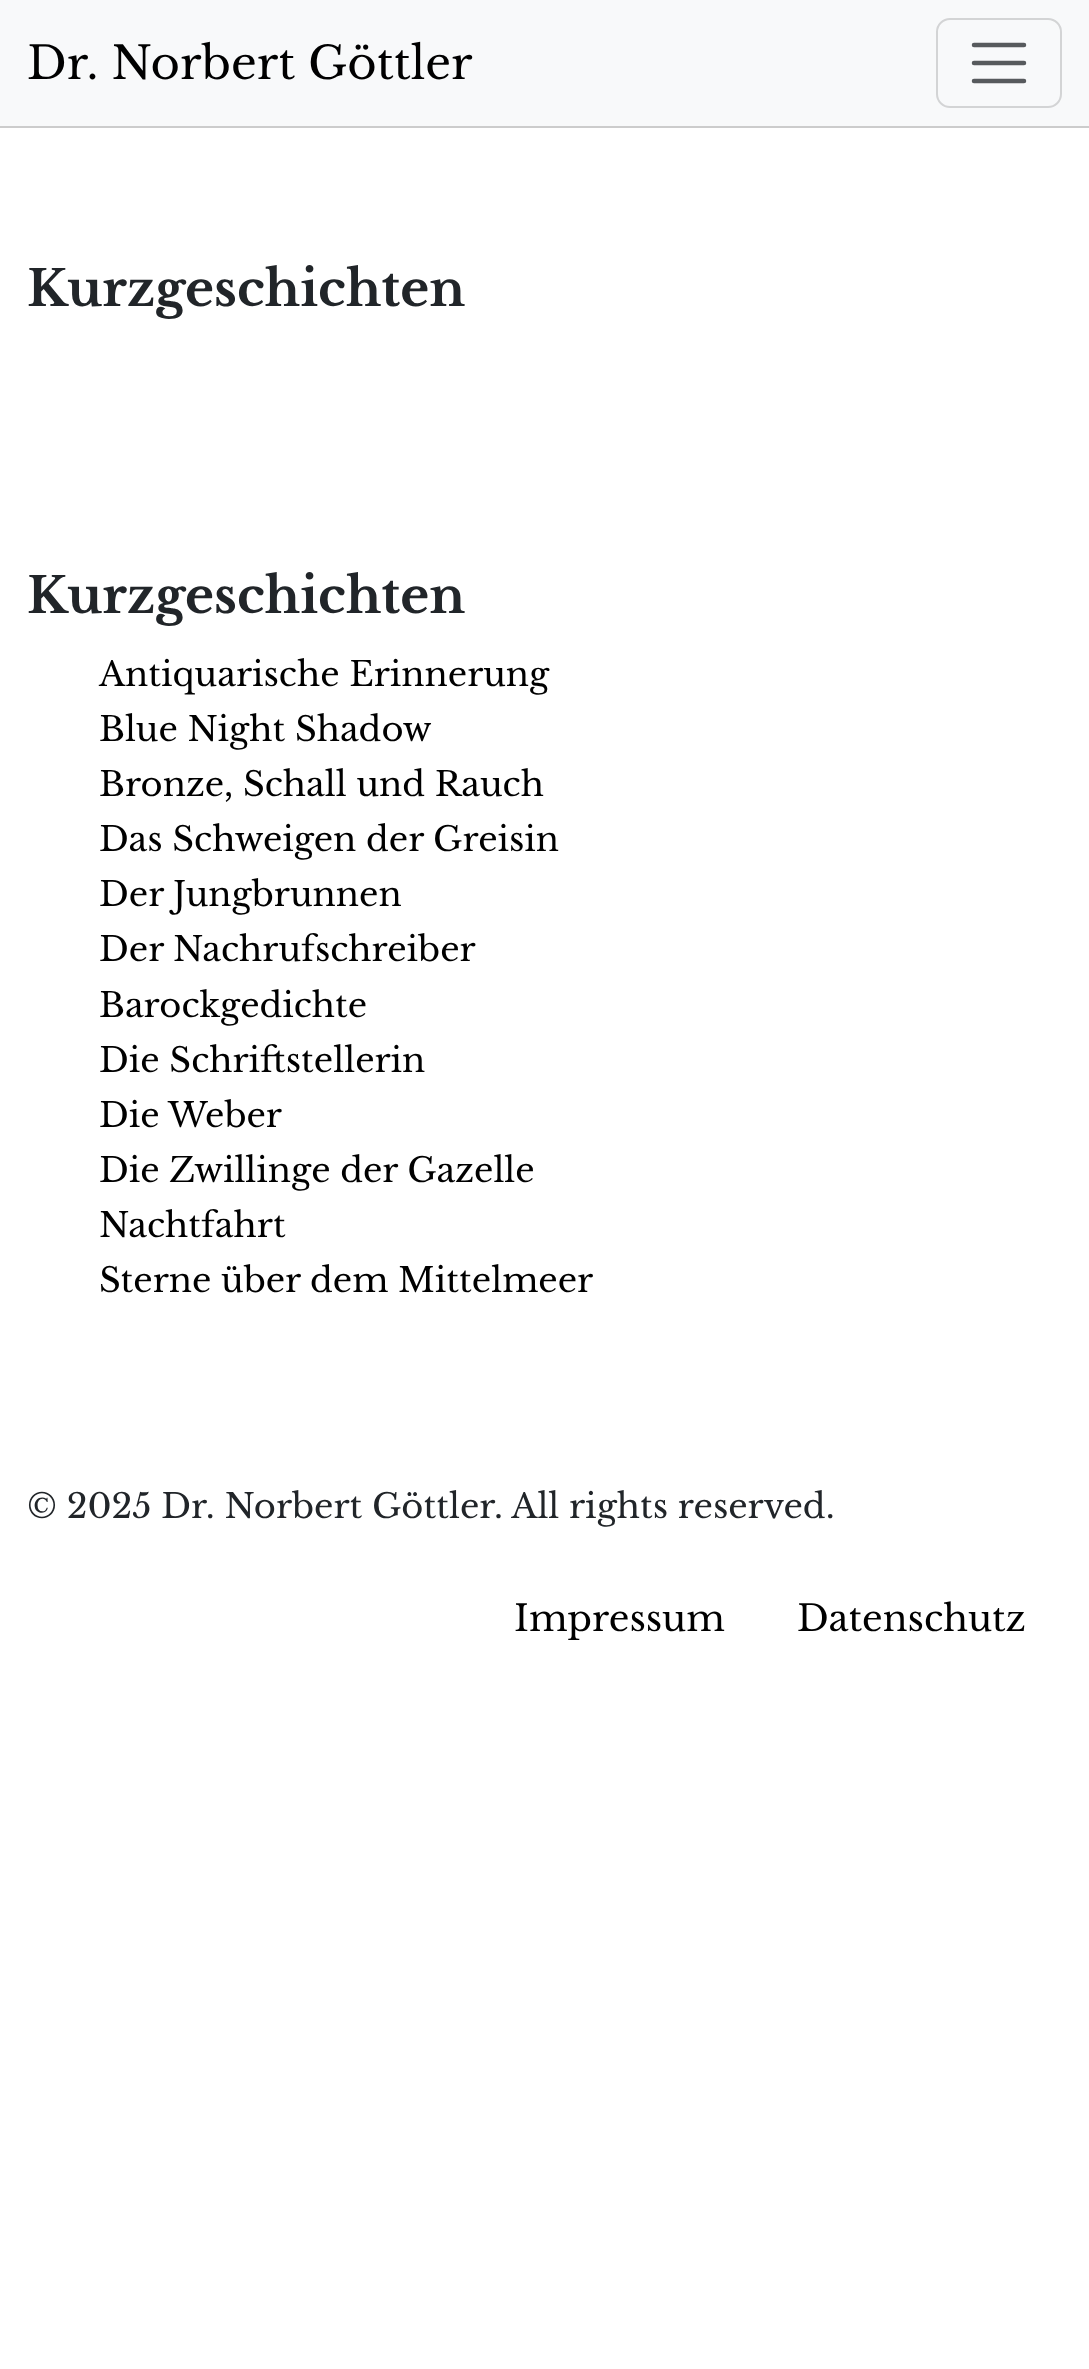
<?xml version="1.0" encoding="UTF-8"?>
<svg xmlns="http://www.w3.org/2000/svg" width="1089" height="2369">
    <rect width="100%" height="100%" fill="#FFFFFF"/>
    <rect x="0" y="0" width="1089" height="126" fill="#F8F9FA"/>
    <rect x="0" y="126" width="1089" height="2" fill="#CCCCCC"/>
    <text x="27" y="79" font-family="Libre Baskerville" font-size="45" fill="#000000">Dr. Norbert Göttler</text>
    <rect x="937" y="19" width="124" height="88" rx="13" fill="none" stroke="#D3D4D5" stroke-width="2"/>
    <path d="M 974 45 H 1024 M 974 63 H 1024 M 974 81 H 1024" fill="none" stroke="#575A5D" stroke-width="4.5" stroke-linecap="round"/>
    <text x="27" y="306" font-family="Libre Baskerville" font-size="49.5" font-weight="700" fill="#212529">Kurzgeschichten</text>
    <text x="27" y="613" font-family="Libre Baskerville" font-size="49.5" font-weight="700" fill="#212529">Kurzgeschichten</text>
    <text font-family="Libre Baskerville" font-size="33.75" fill="#000000">
        <tspan x="99" y="686">Antiquarische Erinnerung</tspan>
        <tspan x="99" y="741">Blue Night Shadow</tspan>
        <tspan x="99" y="796">Bronze, Schall und Rauch</tspan>
        <tspan x="99" y="851">Das Schweigen der Greisin</tspan>
        <tspan x="99" y="906">Der Jungbrunnen</tspan>
        <tspan x="99" y="961">Der Nachrufschreiber</tspan>
        <tspan x="99" y="1017">Barockgedichte</tspan>
        <tspan x="99" y="1072">Die Schriftstellerin</tspan>
        <tspan x="99" y="1127">Die Weber</tspan>
        <tspan x="99" y="1182">Die Zwillinge der Gazelle</tspan>
        <tspan x="99" y="1237">Nachtfahrt</tspan>
        <tspan x="99" y="1292">Sterne über dem Mittelmeer</tspan>
    </text>
    <text x="27" y="1518" font-family="Libre Baskerville" font-size="33.75" fill="#212529">© 2025 Dr. Norbert Göttler. All rights reserved.</text>
    <text x="514" y="1631" font-family="Libre Baskerville" font-size="36" fill="#000000">Impressum</text>
    <text x="797" y="1631" font-family="Libre Baskerville" font-size="36" fill="#000000">Datenschutz</text>
</svg>
